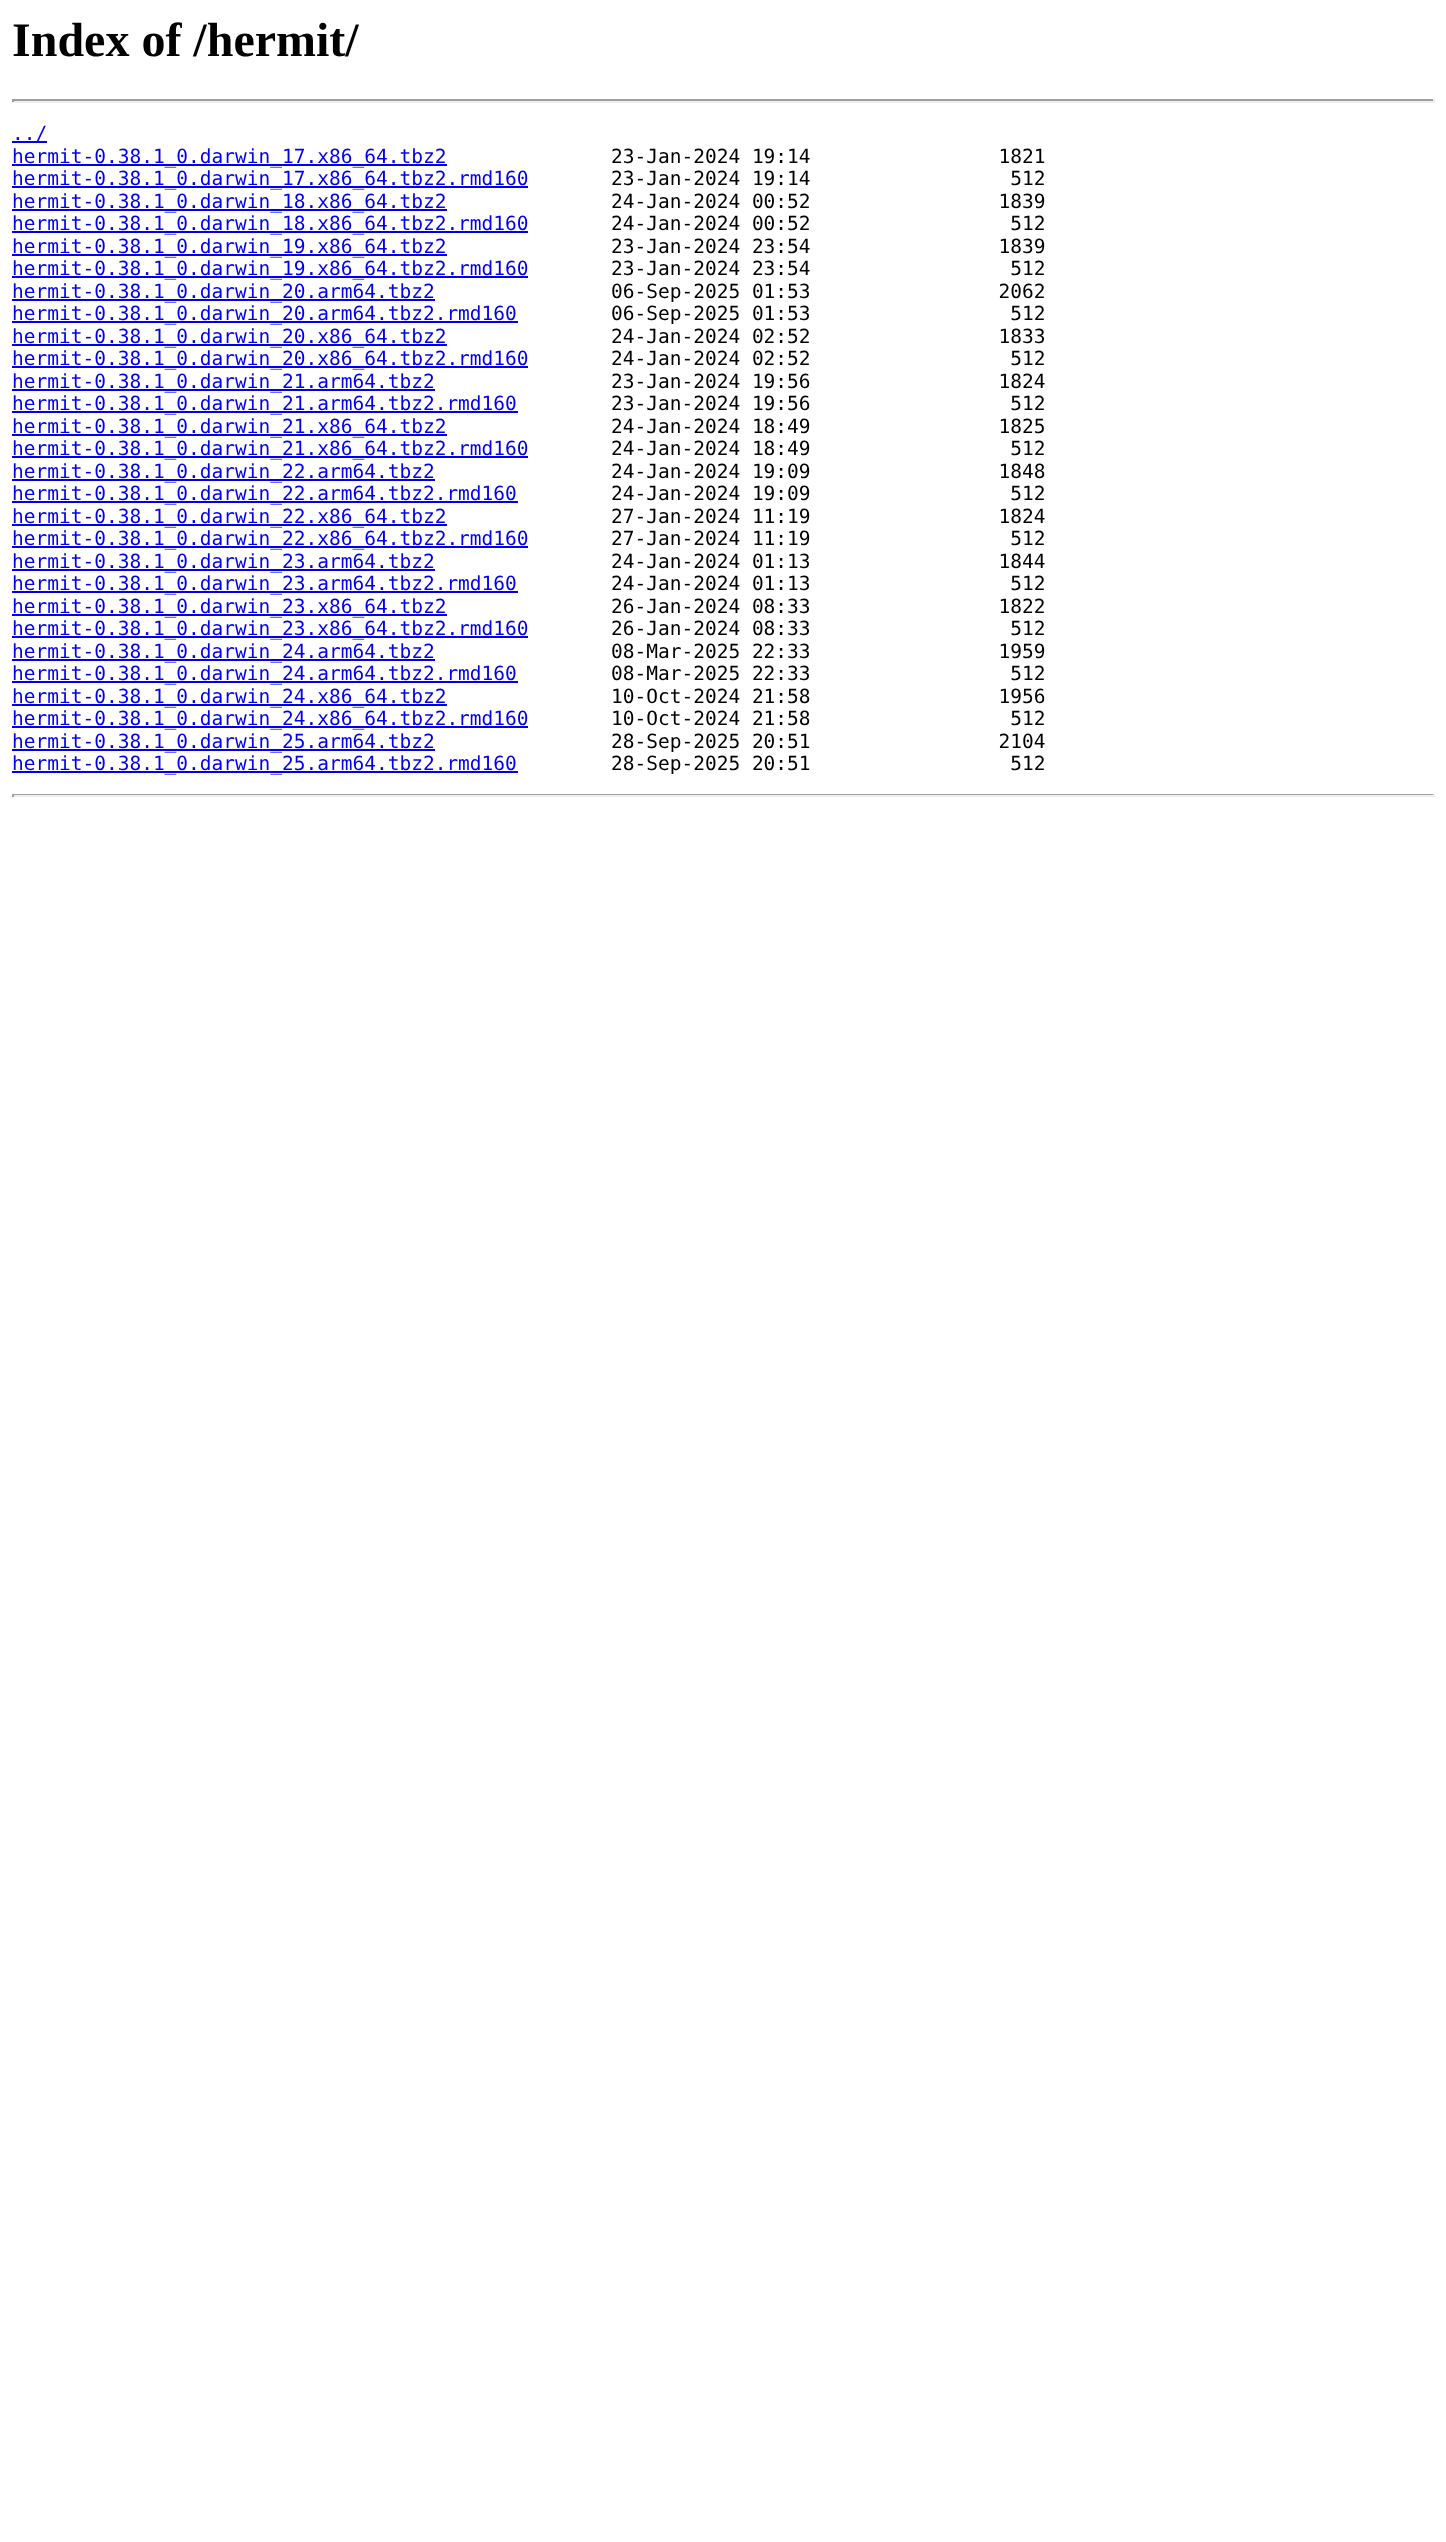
<?xml version="1.0" encoding="UTF-8"?>
<svg xmlns="http://www.w3.org/2000/svg" width="1446" height="2542">
    <rect width="100%" height="100%" fill="#FFFFFF"/>
    <text x="12" y="56" font-family="Liberation Serif" font-size="48" font-weight="700" fill="#000000">Index of /hermit/</text>
    <rect x="12" y="99" width="1422" height="2" fill="#9F9F9F"/>
    <rect x="1433" y="99" width="2" height="3" fill="#EEEEEE"/>
    <rect x="12" y="101" width="1422" height="2" fill="#EEEEEE"/>
    <rect x="12" y="99" width="2" height="3" fill="#9F9F9F"/>
    <rect x="12" y="141" width="35" height="2" fill="#0000EE"/>
    <text x="12" y="140" font-family="DejaVu Sans Mono" font-size="19.5" fill="#0000EE">../</text>
    <rect x="12" y="164" width="435" height="2" fill="#0000EE"/>
    <text x="12" y="163" font-family="DejaVu Sans Mono" font-size="19.5" fill="#0000EE">hermit-0.38.1_0.darwin_17.x86_64.tbz2</text>
    <text x="611" y="163" font-family="DejaVu Sans Mono" font-size="19.5" fill="#000000" xml:space="preserve">23-Jan-2024 19:14                1821</text>
    <rect x="12" y="186" width="516" height="2" fill="#0000EE"/>
    <text x="12" y="185" font-family="DejaVu Sans Mono" font-size="19.5" fill="#0000EE">hermit-0.38.1_0.darwin_17.x86_64.tbz2.rmd160</text>
    <text x="611" y="185" font-family="DejaVu Sans Mono" font-size="19.5" fill="#000000" xml:space="preserve">23-Jan-2024 19:14                 512</text>
    <rect x="12" y="209" width="435" height="2" fill="#0000EE"/>
    <text x="12" y="208" font-family="DejaVu Sans Mono" font-size="19.5" fill="#0000EE">hermit-0.38.1_0.darwin_18.x86_64.tbz2</text>
    <text x="611" y="208" font-family="DejaVu Sans Mono" font-size="19.5" fill="#000000" xml:space="preserve">24-Jan-2024 00:52                1839</text>
    <rect x="12" y="231" width="516" height="2" fill="#0000EE"/>
    <text x="12" y="230" font-family="DejaVu Sans Mono" font-size="19.5" fill="#0000EE">hermit-0.38.1_0.darwin_18.x86_64.tbz2.rmd160</text>
    <text x="611" y="230" font-family="DejaVu Sans Mono" font-size="19.5" fill="#000000" xml:space="preserve">24-Jan-2024 00:52                 512</text>
    <rect x="12" y="254" width="435" height="2" fill="#0000EE"/>
    <text x="12" y="253" font-family="DejaVu Sans Mono" font-size="19.5" fill="#0000EE">hermit-0.38.1_0.darwin_19.x86_64.tbz2</text>
    <text x="611" y="253" font-family="DejaVu Sans Mono" font-size="19.5" fill="#000000" xml:space="preserve">23-Jan-2024 23:54                1839</text>
    <rect x="12" y="276" width="516" height="2" fill="#0000EE"/>
    <text x="12" y="275" font-family="DejaVu Sans Mono" font-size="19.5" fill="#0000EE">hermit-0.38.1_0.darwin_19.x86_64.tbz2.rmd160</text>
    <text x="611" y="275" font-family="DejaVu Sans Mono" font-size="19.5" fill="#000000" xml:space="preserve">23-Jan-2024 23:54                 512</text>
    <rect x="12" y="299" width="423" height="2" fill="#0000EE"/>
    <text x="12" y="298" font-family="DejaVu Sans Mono" font-size="19.5" fill="#0000EE">hermit-0.38.1_0.darwin_20.arm64.tbz2</text>
    <text x="611" y="298" font-family="DejaVu Sans Mono" font-size="19.5" fill="#000000" xml:space="preserve">06-Sep-2025 01:53                2062</text>
    <rect x="12" y="321" width="506" height="2" fill="#0000EE"/>
    <text x="12" y="320" font-family="DejaVu Sans Mono" font-size="19.5" fill="#0000EE">hermit-0.38.1_0.darwin_20.arm64.tbz2.rmd160</text>
    <text x="611" y="320" font-family="DejaVu Sans Mono" font-size="19.5" fill="#000000" xml:space="preserve">06-Sep-2025 01:53                 512</text>
    <rect x="12" y="344" width="435" height="2" fill="#0000EE"/>
    <text x="12" y="343" font-family="DejaVu Sans Mono" font-size="19.5" fill="#0000EE">hermit-0.38.1_0.darwin_20.x86_64.tbz2</text>
    <text x="611" y="343" font-family="DejaVu Sans Mono" font-size="19.5" fill="#000000" xml:space="preserve">24-Jan-2024 02:52                1833</text>
    <rect x="12" y="366" width="516" height="2" fill="#0000EE"/>
    <text x="12" y="365" font-family="DejaVu Sans Mono" font-size="19.5" fill="#0000EE">hermit-0.38.1_0.darwin_20.x86_64.tbz2.rmd160</text>
    <text x="611" y="365" font-family="DejaVu Sans Mono" font-size="19.5" fill="#000000" xml:space="preserve">24-Jan-2024 02:52                 512</text>
    <rect x="12" y="389" width="423" height="2" fill="#0000EE"/>
    <text x="12" y="388" font-family="DejaVu Sans Mono" font-size="19.5" fill="#0000EE">hermit-0.38.1_0.darwin_21.arm64.tbz2</text>
    <text x="611" y="388" font-family="DejaVu Sans Mono" font-size="19.5" fill="#000000" xml:space="preserve">23-Jan-2024 19:56                1824</text>
    <rect x="12" y="411" width="506" height="2" fill="#0000EE"/>
    <text x="12" y="410" font-family="DejaVu Sans Mono" font-size="19.5" fill="#0000EE">hermit-0.38.1_0.darwin_21.arm64.tbz2.rmd160</text>
    <text x="611" y="410" font-family="DejaVu Sans Mono" font-size="19.5" fill="#000000" xml:space="preserve">23-Jan-2024 19:56                 512</text>
    <rect x="12" y="434" width="435" height="2" fill="#0000EE"/>
    <text x="12" y="433" font-family="DejaVu Sans Mono" font-size="19.5" fill="#0000EE">hermit-0.38.1_0.darwin_21.x86_64.tbz2</text>
    <text x="611" y="433" font-family="DejaVu Sans Mono" font-size="19.5" fill="#000000" xml:space="preserve">24-Jan-2024 18:49                1825</text>
    <rect x="12" y="456" width="516" height="2" fill="#0000EE"/>
    <text x="12" y="455" font-family="DejaVu Sans Mono" font-size="19.5" fill="#0000EE">hermit-0.38.1_0.darwin_21.x86_64.tbz2.rmd160</text>
    <text x="611" y="455" font-family="DejaVu Sans Mono" font-size="19.5" fill="#000000" xml:space="preserve">24-Jan-2024 18:49                 512</text>
    <rect x="12" y="479" width="423" height="2" fill="#0000EE"/>
    <text x="12" y="478" font-family="DejaVu Sans Mono" font-size="19.5" fill="#0000EE">hermit-0.38.1_0.darwin_22.arm64.tbz2</text>
    <text x="611" y="478" font-family="DejaVu Sans Mono" font-size="19.5" fill="#000000" xml:space="preserve">24-Jan-2024 19:09                1848</text>
    <rect x="12" y="501" width="506" height="2" fill="#0000EE"/>
    <text x="12" y="500" font-family="DejaVu Sans Mono" font-size="19.5" fill="#0000EE">hermit-0.38.1_0.darwin_22.arm64.tbz2.rmd160</text>
    <text x="611" y="500" font-family="DejaVu Sans Mono" font-size="19.5" fill="#000000" xml:space="preserve">24-Jan-2024 19:09                 512</text>
    <rect x="12" y="524" width="435" height="2" fill="#0000EE"/>
    <text x="12" y="523" font-family="DejaVu Sans Mono" font-size="19.5" fill="#0000EE">hermit-0.38.1_0.darwin_22.x86_64.tbz2</text>
    <text x="611" y="523" font-family="DejaVu Sans Mono" font-size="19.5" fill="#000000" xml:space="preserve">27-Jan-2024 11:19                1824</text>
    <rect x="12" y="546" width="516" height="2" fill="#0000EE"/>
    <text x="12" y="545" font-family="DejaVu Sans Mono" font-size="19.5" fill="#0000EE">hermit-0.38.1_0.darwin_22.x86_64.tbz2.rmd160</text>
    <text x="611" y="545" font-family="DejaVu Sans Mono" font-size="19.5" fill="#000000" xml:space="preserve">27-Jan-2024 11:19                 512</text>
    <rect x="12" y="569" width="423" height="2" fill="#0000EE"/>
    <text x="12" y="568" font-family="DejaVu Sans Mono" font-size="19.5" fill="#0000EE">hermit-0.38.1_0.darwin_23.arm64.tbz2</text>
    <text x="611" y="568" font-family="DejaVu Sans Mono" font-size="19.5" fill="#000000" xml:space="preserve">24-Jan-2024 01:13                1844</text>
    <rect x="12" y="591" width="506" height="2" fill="#0000EE"/>
    <text x="12" y="590" font-family="DejaVu Sans Mono" font-size="19.5" fill="#0000EE">hermit-0.38.1_0.darwin_23.arm64.tbz2.rmd160</text>
    <text x="611" y="590" font-family="DejaVu Sans Mono" font-size="19.5" fill="#000000" xml:space="preserve">24-Jan-2024 01:13                 512</text>
    <rect x="12" y="614" width="435" height="2" fill="#0000EE"/>
    <text x="12" y="613" font-family="DejaVu Sans Mono" font-size="19.5" fill="#0000EE">hermit-0.38.1_0.darwin_23.x86_64.tbz2</text>
    <text x="611" y="613" font-family="DejaVu Sans Mono" font-size="19.5" fill="#000000" xml:space="preserve">26-Jan-2024 08:33                1822</text>
    <rect x="12" y="636" width="516" height="2" fill="#0000EE"/>
    <text x="12" y="635" font-family="DejaVu Sans Mono" font-size="19.5" fill="#0000EE">hermit-0.38.1_0.darwin_23.x86_64.tbz2.rmd160</text>
    <text x="611" y="635" font-family="DejaVu Sans Mono" font-size="19.5" fill="#000000" xml:space="preserve">26-Jan-2024 08:33                 512</text>
    <rect x="12" y="659" width="423" height="2" fill="#0000EE"/>
    <text x="12" y="658" font-family="DejaVu Sans Mono" font-size="19.5" fill="#0000EE">hermit-0.38.1_0.darwin_24.arm64.tbz2</text>
    <text x="611" y="658" font-family="DejaVu Sans Mono" font-size="19.5" fill="#000000" xml:space="preserve">08-Mar-2025 22:33                1959</text>
    <rect x="12" y="681" width="506" height="2" fill="#0000EE"/>
    <text x="12" y="680" font-family="DejaVu Sans Mono" font-size="19.5" fill="#0000EE">hermit-0.38.1_0.darwin_24.arm64.tbz2.rmd160</text>
    <text x="611" y="680" font-family="DejaVu Sans Mono" font-size="19.5" fill="#000000" xml:space="preserve">08-Mar-2025 22:33                 512</text>
    <rect x="12" y="704" width="435" height="2" fill="#0000EE"/>
    <text x="12" y="703" font-family="DejaVu Sans Mono" font-size="19.5" fill="#0000EE">hermit-0.38.1_0.darwin_24.x86_64.tbz2</text>
    <text x="611" y="703" font-family="DejaVu Sans Mono" font-size="19.5" fill="#000000" xml:space="preserve">10-Oct-2024 21:58                1956</text>
    <rect x="12" y="726" width="516" height="2" fill="#0000EE"/>
    <text x="12" y="725" font-family="DejaVu Sans Mono" font-size="19.5" fill="#0000EE">hermit-0.38.1_0.darwin_24.x86_64.tbz2.rmd160</text>
    <text x="611" y="725" font-family="DejaVu Sans Mono" font-size="19.5" fill="#000000" xml:space="preserve">10-Oct-2024 21:58                 512</text>
    <rect x="12" y="749" width="423" height="2" fill="#0000EE"/>
    <text x="12" y="748" font-family="DejaVu Sans Mono" font-size="19.5" fill="#0000EE">hermit-0.38.1_0.darwin_25.arm64.tbz2</text>
    <text x="611" y="748" font-family="DejaVu Sans Mono" font-size="19.5" fill="#000000" xml:space="preserve">28-Sep-2025 20:51                2104</text>
    <rect x="12" y="771" width="506" height="2" fill="#0000EE"/>
    <text x="12" y="770" font-family="DejaVu Sans Mono" font-size="19.5" fill="#0000EE">hermit-0.38.1_0.darwin_25.arm64.tbz2.rmd160</text>
    <text x="611" y="770" font-family="DejaVu Sans Mono" font-size="19.5" fill="#000000" xml:space="preserve">28-Sep-2025 20:51                 512</text>
    <rect x="12" y="794" width="1422" height="1" fill="#9F9F9F"/>
    <rect x="1433" y="794" width="2" height="3" fill="#EEEEEE"/>
    <rect x="12" y="795" width="1422" height="2" fill="#EEEEEE"/>
    <rect x="12" y="794" width="2" height="3" fill="#9F9F9F"/>
</svg>
